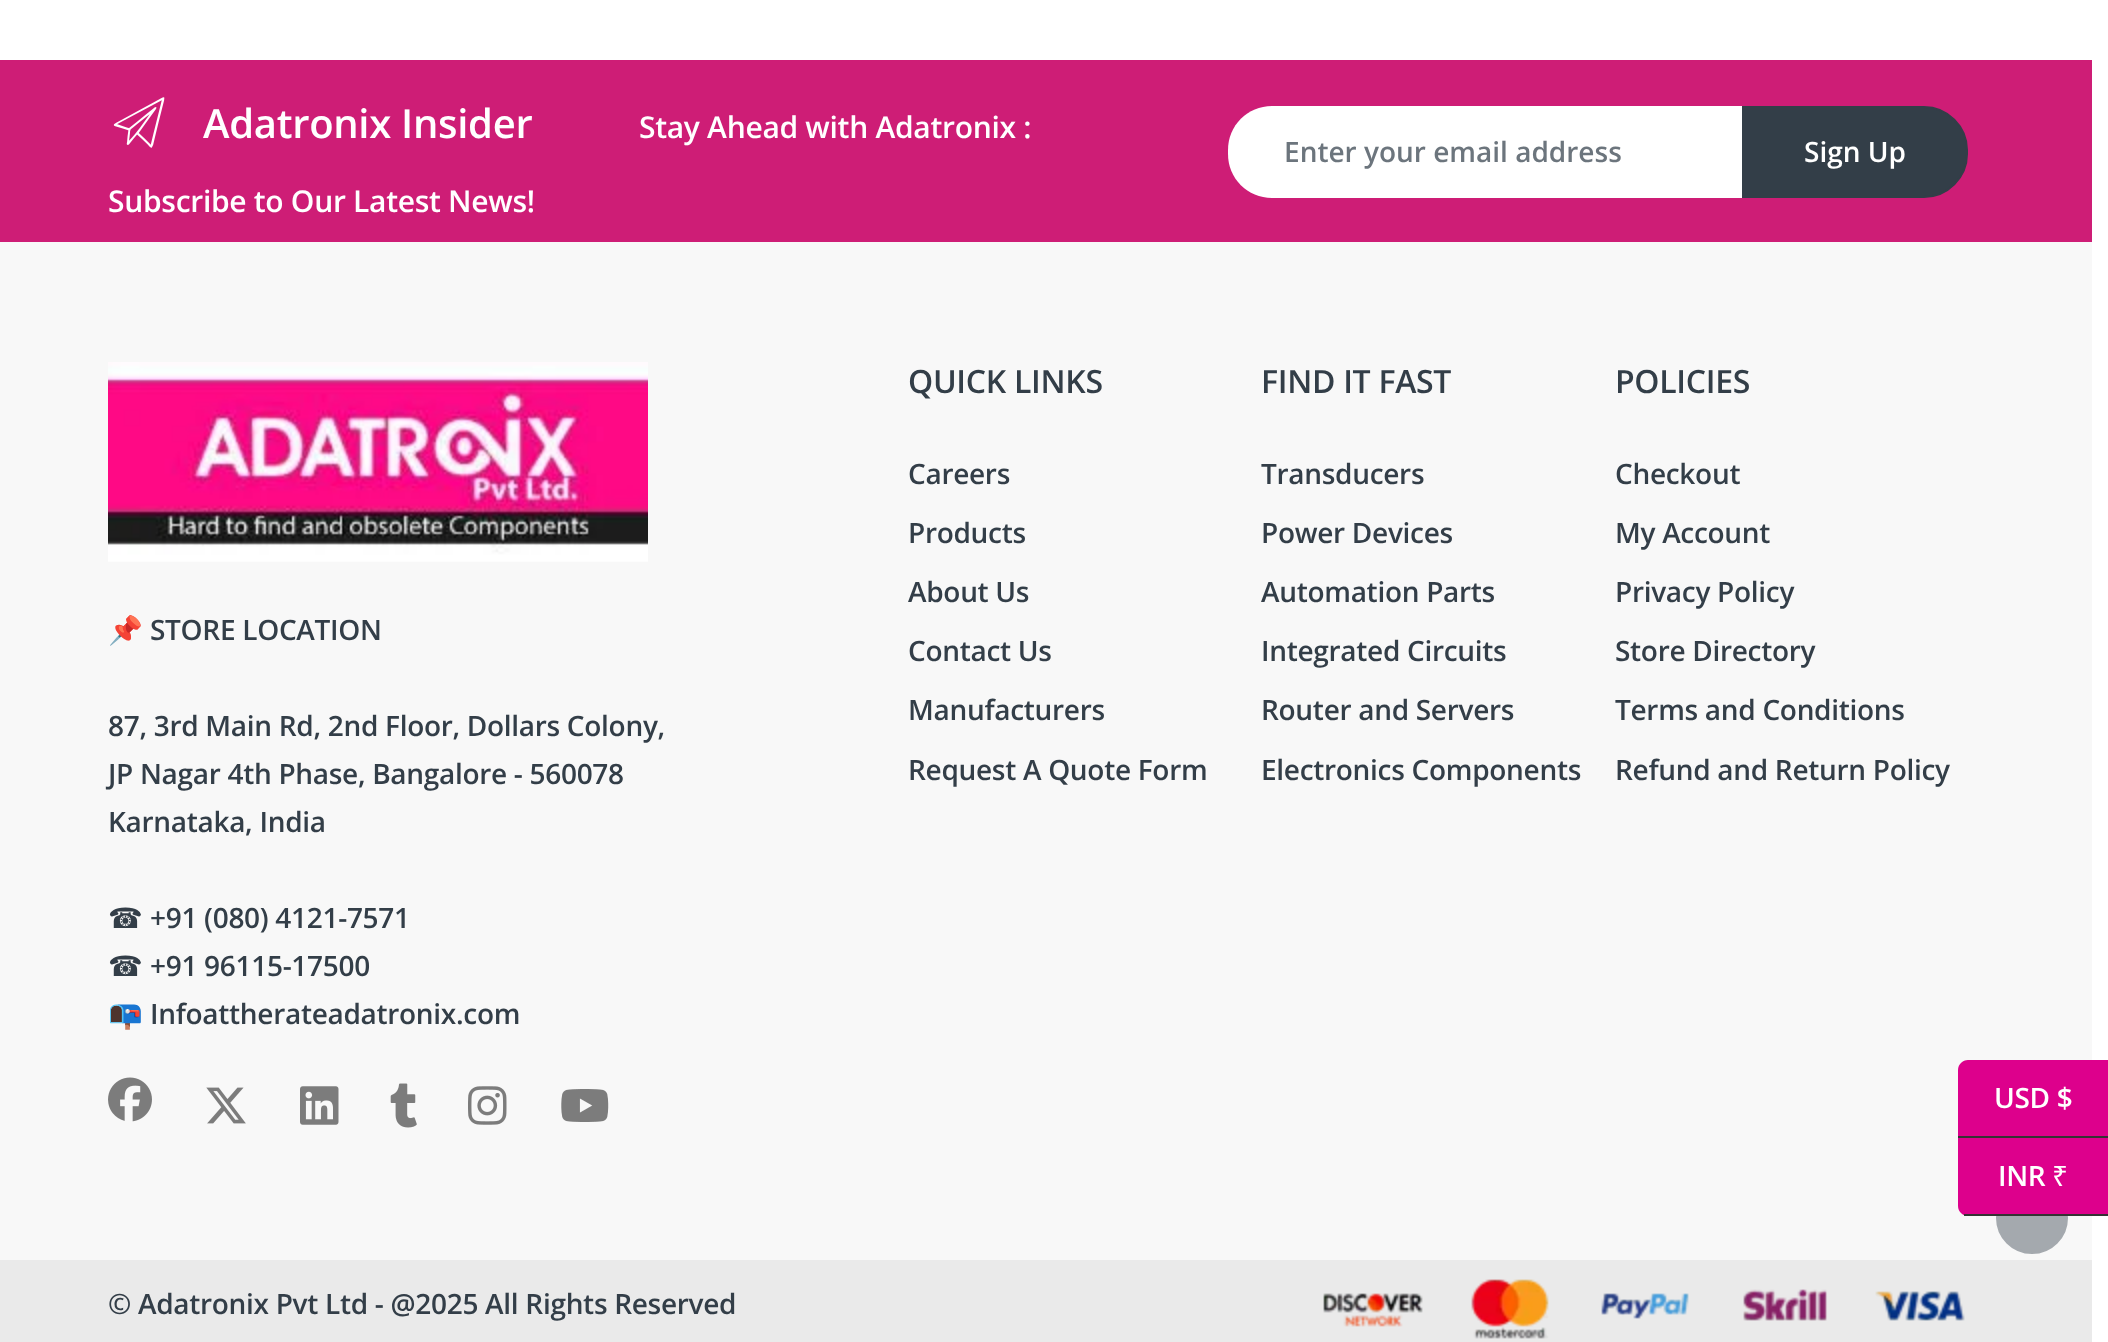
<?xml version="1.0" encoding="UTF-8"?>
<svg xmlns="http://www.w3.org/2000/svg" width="2108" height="1342">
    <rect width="100%" height="100%" fill="#FFFFFF"/>
    <rect x="0" y="60" width="2092" height="182" fill="#CE1D76"/>
    <image x="113" y="97" width="52" height="51" href="img_01.png"/>
    <text x="203" y="138" font-family="Open Sans" font-size="40" font-weight="600" letter-spacing="-0.3" fill="#FFFFFF">Adatronix Insider</text>
    <text x="639" y="138" font-family="Open Sans" font-size="30" font-weight="600" letter-spacing="-0.3" fill="#FFFFFF">Stay Ahead with Adatronix :</text>
    <text x="108" y="212" font-family="Open Sans" font-size="30" font-weight="600" letter-spacing="-0.3" fill="#FFFFFF">Subscribe to Our Latest News!</text>
    <path d="M 1272 106 H 1744 V 198 H 1272 C 1247.5 198 1228 178.5 1228 154 V 150 C 1228 125.5 1247.5 106 1272 106 Z" fill="#FFFFFF"/>
    <text x="1284" y="162" font-family="Open Sans" font-size="28" font-weight="600" fill="#6C757D">Enter your email address</text>
    <path d="M 1743 107 H 1924 C 1947.5 107 1967 126.5 1967 150 V 154 C 1967 177.5 1947.5 197 1924 197 H 1743 Z" fill="#333E48" stroke="#333E48" stroke-width="2"/>
    <text x="1804" y="162" font-family="Open Sans" font-size="28" font-weight="600" fill="#FFFFFF">Sign Up</text>
    <rect x="0" y="242" width="2092" height="1018" fill="#F8F8F8"/>
    <image x="108" y="362" width="540" height="200" href="img_02.png"/>
    <text x="108" y="640" font-family="Noto Color Emoji" font-size="28" letter-spacing="-0.3" fill="#333E48">📌</text>
    <text x="150" y="640" font-family="Open Sans" font-size="28" font-weight="600" letter-spacing="-0.3" fill="#333E48">STORE LOCATION</text>
    <text font-family="Open Sans" font-size="28" font-weight="600" letter-spacing="-0.3" fill="#333E48">
        <tspan x="108" y="736">87, 3rd Main Rd, 2nd Floor, Dollars Colony,</tspan>
        <tspan x="108" y="784">JP Nagar 4th Phase, Bangalore - 560078</tspan>
        <tspan x="108" y="832">Karnataka, India</tspan>
    </text>
    <text x="108" y="928" font-family="DejaVu Sans" font-size="28" letter-spacing="-0.3" fill="#333E48">☎</text>
    <text x="150" y="928" font-family="Open Sans" font-size="28" font-weight="600" letter-spacing="-0.3" fill="#333E48">+91 (080) 4121-7571</text>
    <text x="108" y="976" font-family="DejaVu Sans" font-size="28" letter-spacing="-0.3" fill="#333E48">☎</text>
    <text x="150" y="976" font-family="Open Sans" font-size="28" font-weight="600" letter-spacing="-0.3" fill="#333E48">+91 96115-17500</text>
    <text x="108" y="1024" font-family="Noto Color Emoji" font-size="28" letter-spacing="-0.3" fill="#333E48">📭</text>
    <text x="150" y="1024" font-family="Open Sans" font-size="28" font-weight="600" letter-spacing="-0.3" fill="#333E48">Infoattherateadatronix.com</text>
    <image x="108" y="1077" width="44" height="45" href="img_03.png"/>
    <image x="206" y="1087" width="40" height="37" href="img_04.png"/>
    <image x="300" y="1086" width="39" height="39" href="img_05.png"/>
    <image x="390" y="1083" width="27" height="45" href="img_06.png"/>
    <image x="468" y="1086" width="39" height="39" href="img_07.png"/>
    <image x="561" y="1089" width="48" height="33" href="img_08.png"/>
    <text x="908" y="393" font-family="Open Sans" font-size="32" font-weight="600" letter-spacing="-0.3" fill="#333E48">QUICK LINKS</text>
    <text x="908" y="484" font-family="Open Sans" font-size="28" font-weight="600" letter-spacing="-0.3" fill="#333E48">Careers</text>
    <text x="908" y="543" font-family="Open Sans" font-size="28" font-weight="600" letter-spacing="-0.3" fill="#333E48">Products</text>
    <text x="908" y="602" font-family="Open Sans" font-size="28" font-weight="600" letter-spacing="-0.3" fill="#333E48">About Us</text>
    <text x="908" y="661" font-family="Open Sans" font-size="28" font-weight="600" letter-spacing="-0.3" fill="#333E48">Contact Us</text>
    <text x="908" y="720" font-family="Open Sans" font-size="28" font-weight="600" letter-spacing="-0.3" fill="#333E48">Manufacturers</text>
    <text x="908" y="780" font-family="Open Sans" font-size="28" font-weight="600" letter-spacing="-0.3" fill="#333E48">Request A Quote Form</text>
    <text x="1261" y="393" font-family="Open Sans" font-size="32" font-weight="600" letter-spacing="-0.3" fill="#333E48">FIND IT FAST</text>
    <text x="1261" y="484" font-family="Open Sans" font-size="28" font-weight="600" letter-spacing="-0.3" fill="#333E48">Transducers</text>
    <text x="1261" y="543" font-family="Open Sans" font-size="28" font-weight="600" letter-spacing="-0.3" fill="#333E48">Power Devices</text>
    <text x="1261" y="602" font-family="Open Sans" font-size="28" font-weight="600" letter-spacing="-0.3" fill="#333E48">Automation Parts</text>
    <text x="1261" y="661" font-family="Open Sans" font-size="28" font-weight="600" letter-spacing="-0.3" fill="#333E48">Integrated Circuits</text>
    <text x="1261" y="720" font-family="Open Sans" font-size="28" font-weight="600" letter-spacing="-0.3" fill="#333E48">Router and Servers</text>
    <text x="1261" y="780" font-family="Open Sans" font-size="28" font-weight="600" letter-spacing="-0.3" fill="#333E48">Electronics Components</text>
    <text x="1615" y="393" font-family="Open Sans" font-size="32" font-weight="600" letter-spacing="-0.3" fill="#333E48">POLICIES</text>
    <text x="1615" y="484" font-family="Open Sans" font-size="28" font-weight="600" letter-spacing="-0.3" fill="#333E48">Checkout</text>
    <text x="1615" y="543" font-family="Open Sans" font-size="28" font-weight="600" letter-spacing="-0.3" fill="#333E48">My Account</text>
    <text x="1615" y="602" font-family="Open Sans" font-size="28" font-weight="600" letter-spacing="-0.3" fill="#333E48">Privacy Policy</text>
    <text x="1615" y="661" font-family="Open Sans" font-size="28" font-weight="600" letter-spacing="-0.3" fill="#333E48">Store Directory</text>
    <text x="1615" y="720" font-family="Open Sans" font-size="28" font-weight="600" letter-spacing="-0.3" fill="#333E48">Terms and Conditions</text>
    <text x="1615" y="780" font-family="Open Sans" font-size="28" font-weight="600" letter-spacing="-0.3" fill="#333E48">Refund and Return Policy</text>
    <rect x="0" y="1260" width="2092" height="82" fill="#EAEAEA"/>
    <text x="108" y="1314" font-family="Open Sans" font-size="28" font-weight="600" letter-spacing="-0.3" fill="#333E48">© Adatronix Pvt Ltd - @2025 All Rights Reserved</text>
    <image x="1323" y="1279" width="642" height="60" href="img_09.png"/>
    <path d="M 1968 1060 H 2108 V 1138 H 1958 V 1070 C 1958 1064.5 1962.5 1060 1968 1060 Z" fill="#DD008C"/>
    <rect x="1958" y="1136" width="150" height="2" fill="#333333"/>
    <text x="1994" y="1108" font-family="Open Sans" font-size="28" font-weight="600" letter-spacing="-0.3" fill="#FFFFFF">USD $</text>
    <circle cx="2032" cy="1218" r="35" fill="#A4A9AE" stroke="#A4A9AE" stroke-width="2"/>
    <path d="M 1958 1138 H 2108 V 1216 H 1968 C 1962.5 1216 1958 1211.5 1958 1206 Z" fill="#DD008C"/>
    <rect x="1964" y="1214" width="144" height="2" fill="#333333"/>
    <text x="1998" y="1186" font-family="Open Sans" font-size="28" font-weight="600" letter-spacing="-0.3" fill="#FFFFFF">INR</text>
    <text x="2052" y="1186" font-family="Noto Sans" font-size="28" letter-spacing="-0.3" fill="#FFFFFF">₹</text>
</svg>
